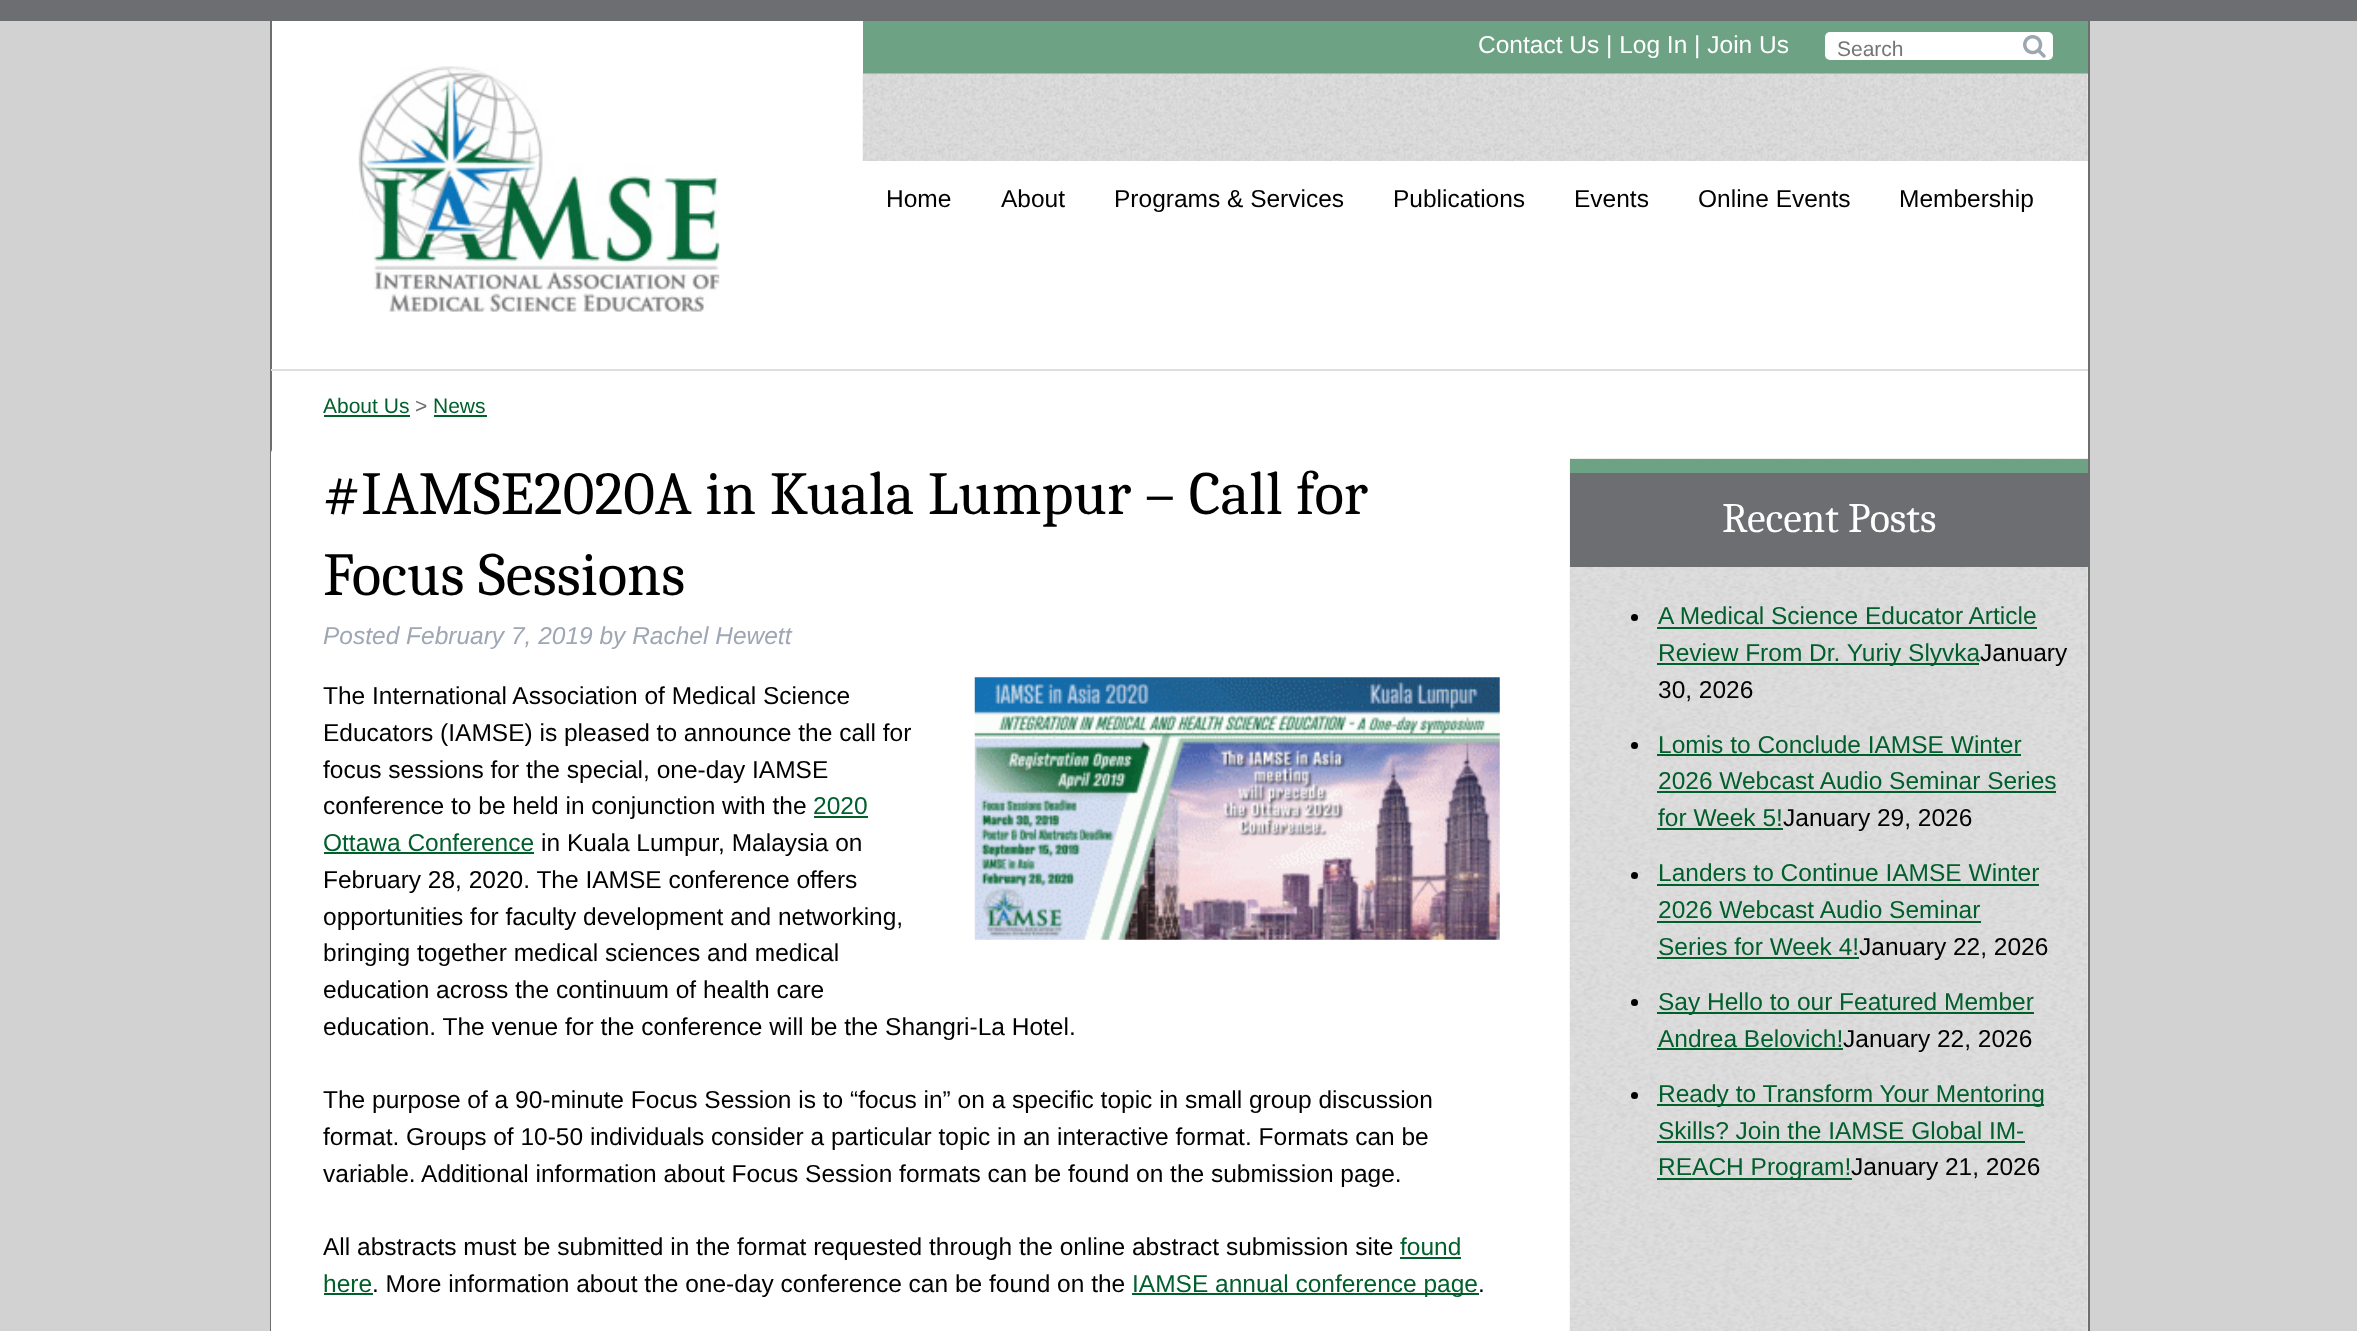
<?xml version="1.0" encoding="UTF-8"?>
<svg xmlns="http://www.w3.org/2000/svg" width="2357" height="1331">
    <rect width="100%" height="100%" fill="#D2D2D2"/>
    <rect x="0" y="0" width="2357" height="21" fill="#6D6E71"/>
    <rect x="272" y="21" width="1816" height="1310" fill="#FFFFFF"/>
    <rect x="2088" y="21" width="2" height="1310" fill="#6D6E71"/>
    <rect x="270" y="21" width="2" height="1310" fill="#6D6E71"/>
    <rect x="271" y="369" width="1817" height="2" fill="#DEDEDE"/>
    <image x="358" y="66" width="362" height="246" href="img_01.png"/>
    <rect x="863" y="21" width="1225" height="53" fill="#6DA285"/>
    <text x="1478" y="53" font-family="Liberation Sans" font-size="24.5" fill="#FFFFFF">Contact Us | Log In | Join Us</text>
    <rect x="1825" y="32" width="228" height="28" rx="5" fill="#FFFFFF"/>
    <text x="1837" y="56" font-family="Liberation Sans" font-size="21" fill="#757575">Search</text>
    <image x="2023" y="35" width="23" height="23" href="img_02.png"/>
    <image x="862" y="73" width="1226" height="88" href="img_03.png"/>
    <text x="886" y="207" font-family="Liberation Sans" font-size="24.5" fill="#000000">Home</text>
    <text x="1001" y="207" font-family="Liberation Sans" font-size="24.5" fill="#000000">About</text>
    <text x="1114" y="207" font-family="Liberation Sans" font-size="24.5" fill="#000000">Programs &amp; Services</text>
    <text x="1393" y="207" font-family="Liberation Sans" font-size="24.5" fill="#000000">Publications</text>
    <text x="1574" y="207" font-family="Liberation Sans" font-size="24.5" fill="#000000">Events</text>
    <text x="1698" y="207" font-family="Liberation Sans" font-size="24.5" fill="#000000">Online Events</text>
    <text x="1899" y="207" font-family="Liberation Sans" font-size="24.5" fill="#000000">Membership</text>
    <text x="323" y="413" font-family="Liberation Sans" font-size="21" fill="#005F2B">About Us</text>
    <rect x="324" y="415" width="86" height="2" fill="#005F2B"/>
    <text x="415" y="413" font-family="Liberation Sans" font-size="21" fill="#6D6E71">&gt;</text>
    <text x="433" y="413" font-family="Liberation Sans" font-size="21" fill="#005F2B">News</text>
    <rect x="434" y="415" width="53" height="2" fill="#005F2B"/>
    <rect x="271" y="448" width="1281" height="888" rx="5" fill="#FFFFFF"/>
    <text font-family="Caladea" font-size="61.25" fill="#000000">
        <tspan x="323" y="514">#IAMSE2020A in Kuala Lumpur – Call for</tspan>
        <tspan x="323" y="595">Focus Sessions</tspan>
    </text>
    <text x="323" y="644" font-family="Liberation Sans" font-size="24.5" font-style="italic" fill="#9FA6B4">Posted February 7, 2019 by Rachel Hewett</text>
    <text font-family="Liberation Sans" font-size="24.5" fill="#000000">
        <tspan x="323" y="704">The International Association of Medical Science</tspan>
        <tspan x="323" y="741">Educators (IAMSE) is pleased to announce the call for</tspan>
        <tspan x="323" y="778">focus sessions for the special, one-day IAMSE</tspan>
        <tspan x="323" y="814">conference to be held in conjunction with the</tspan>
    </text>
    <text x="813" y="814" font-family="Liberation Sans" font-size="24.5" fill="#005F2B">2020</text>
    <rect x="814" y="816" width="54" height="2" fill="#005F2B"/>
    <text x="323" y="851" font-family="Liberation Sans" font-size="24.5" fill="#005F2B">Ottawa Conference</text>
    <rect x="324" y="852" width="210" height="2" fill="#005F2B"/>
    <text x="541" y="851" font-family="Liberation Sans" font-size="24.5" fill="#000000">in Kuala Lumpur, Malaysia on</text>
    <text font-family="Liberation Sans" font-size="24.5" fill="#000000">
        <tspan x="323" y="888">February 28, 2020. The IAMSE conference offers</tspan>
        <tspan x="323" y="925">opportunities for faculty development and networking,</tspan>
        <tspan x="323" y="961">bringing together medical sciences and medical</tspan>
        <tspan x="323" y="998">education across the continuum of health care</tspan>
        <tspan x="323" y="1035">education. The venue for the conference will be the Shangri-La Hotel.</tspan>
    </text>
    <image x="974" y="677" width="526" height="263" href="img_04.png"/>
    <text font-family="Liberation Sans" font-size="24.5" fill="#000000">
        <tspan x="323" y="1108">The purpose of a 90-minute Focus Session is to “focus in” on a specific topic in small group discussion</tspan>
        <tspan x="323" y="1145">format. Groups of 10-50 individuals consider a particular topic in an interactive format. Formats can be</tspan>
        <tspan x="323" y="1182">variable. Additional information about Focus Session formats can be found on the submission page.</tspan>
    </text>
    <text x="323" y="1255" font-family="Liberation Sans" font-size="24.5" fill="#000000">All abstracts must be submitted in the format requested through the online abstract submission site</text>
    <text x="1400" y="1255" font-family="Liberation Sans" font-size="24.5" fill="#005F2B">found</text>
    <rect x="1400" y="1257" width="61" height="2" fill="#005F2B"/>
    <text x="323" y="1292" font-family="Liberation Sans" font-size="24.5" fill="#005F2B">here</text>
    <rect x="324" y="1293" width="49" height="2" fill="#005F2B"/>
    <text x="372" y="1292" font-family="Liberation Sans" font-size="24.5" fill="#000000">. More information about the one-day conference can be found on the</text>
    <rect x="1132" y="1293" width="347" height="2" fill="#005F2B"/>
    <text x="1132" y="1292" font-family="Liberation Sans" font-size="24.5" fill="#005F2B">IAMSE annual conference page</text>
    <text x="1478" y="1292" font-family="Liberation Sans" font-size="24.5" fill="#000000">.</text>
    <image x="1569" y="458" width="519" height="873" href="img_05.png"/>
    <rect x="1570" y="473" width="518" height="94" fill="#6D6E71"/>
    <rect x="1570" y="459" width="518" height="14" fill="#6DA285"/>
    <text x="1722" y="532" font-family="Caladea" font-size="42" fill="#FFFFFF">Recent Posts</text>
    <circle cx="1634.5" cy="617.5" r="3.5" fill="#000000"/>
    <text x="1658" y="624" font-family="Liberation Sans" font-size="24.5" fill="#005F2B">A Medical Science Educator Article</text>
    <rect x="1657" y="627" width="380" height="2" fill="#005F2B"/>
    <rect x="1657" y="663" width="322" height="2" fill="#005F2B"/>
    <text x="1658" y="661" font-family="Liberation Sans" font-size="24.5" fill="#005F2B">Review From Dr. Yuriy Slyvka</text>
    <text x="1980" y="661" font-family="Liberation Sans" font-size="24.5" fill="#000000">January</text>
    <text x="1658" y="698" font-family="Liberation Sans" font-size="24.5" fill="#000000">30, 2026</text>
    <circle cx="1634.5" cy="745.5" r="3.5" fill="#000000"/>
    <text x="1658" y="753" font-family="Liberation Sans" font-size="24.5" fill="#005F2B">Lomis to Conclude IAMSE Winter</text>
    <rect x="1657" y="754" width="364" height="2" fill="#005F2B"/>
    <text x="1658" y="789" font-family="Liberation Sans" font-size="24.5" fill="#005F2B">2026 Webcast Audio Seminar Series</text>
    <rect x="1657" y="791" width="399" height="2" fill="#005F2B"/>
    <text x="1658" y="826" font-family="Liberation Sans" font-size="24.5" fill="#005F2B">for Week 5!</text>
    <rect x="1657" y="828" width="126" height="2" fill="#005F2B"/>
    <text x="1783" y="826" font-family="Liberation Sans" font-size="24.5" fill="#000000">January 29, 2026</text>
    <circle cx="1634.5" cy="875.5" r="3.5" fill="#000000"/>
    <text x="1658" y="881" font-family="Liberation Sans" font-size="24.5" fill="#005F2B">Landers to Continue IAMSE Winter</text>
    <rect x="1657" y="884" width="382" height="2" fill="#005F2B"/>
    <text x="1658" y="918" font-family="Liberation Sans" font-size="24.5" fill="#005F2B">2026 Webcast Audio Seminar</text>
    <rect x="1657" y="921" width="324" height="2" fill="#005F2B"/>
    <text x="1658" y="955" font-family="Liberation Sans" font-size="24.5" fill="#005F2B">Series for Week 4!</text>
    <rect x="1657" y="957" width="202" height="2" fill="#005F2B"/>
    <text x="1859" y="955" font-family="Liberation Sans" font-size="24.5" fill="#000000">January 22, 2026</text>
    <circle cx="1634.5" cy="1002.5" r="3.5" fill="#000000"/>
    <rect x="1657" y="1012" width="377" height="2" fill="#005F2B"/>
    <text font-family="Liberation Sans" font-size="24.5" fill="#005F2B">
        <tspan x="1658" y="1010">Say Hello to our Featured Member</tspan>
        <tspan x="1658" y="1047">Andrea Belovich!</tspan>
    </text>
    <rect x="1657" y="1048" width="186" height="2" fill="#005F2B"/>
    <text x="1843" y="1047" font-family="Liberation Sans" font-size="24.5" fill="#000000">January 22, 2026</text>
    <circle cx="1634.5" cy="1095.5" r="3.5" fill="#000000"/>
    <rect x="1657" y="1104" width="387" height="2" fill="#005F2B"/>
    <text font-family="Liberation Sans" font-size="24.5" fill="#005F2B">
        <tspan x="1658" y="1102">Ready to Transform Your Mentoring</tspan>
        <tspan x="1658" y="1139">Skills? Join the IAMSE Global IM-</tspan>
    </text>
    <rect x="1657" y="1141" width="368" height="2" fill="#005F2B"/>
    <rect x="1657" y="1178" width="195" height="2" fill="#005F2B"/>
    <text x="1658" y="1175" font-family="Liberation Sans" font-size="24.5" fill="#005F2B">REACH Program!</text>
    <text x="1851" y="1175" font-family="Liberation Sans" font-size="24.5" fill="#000000">January 21, 2026</text>
</svg>
